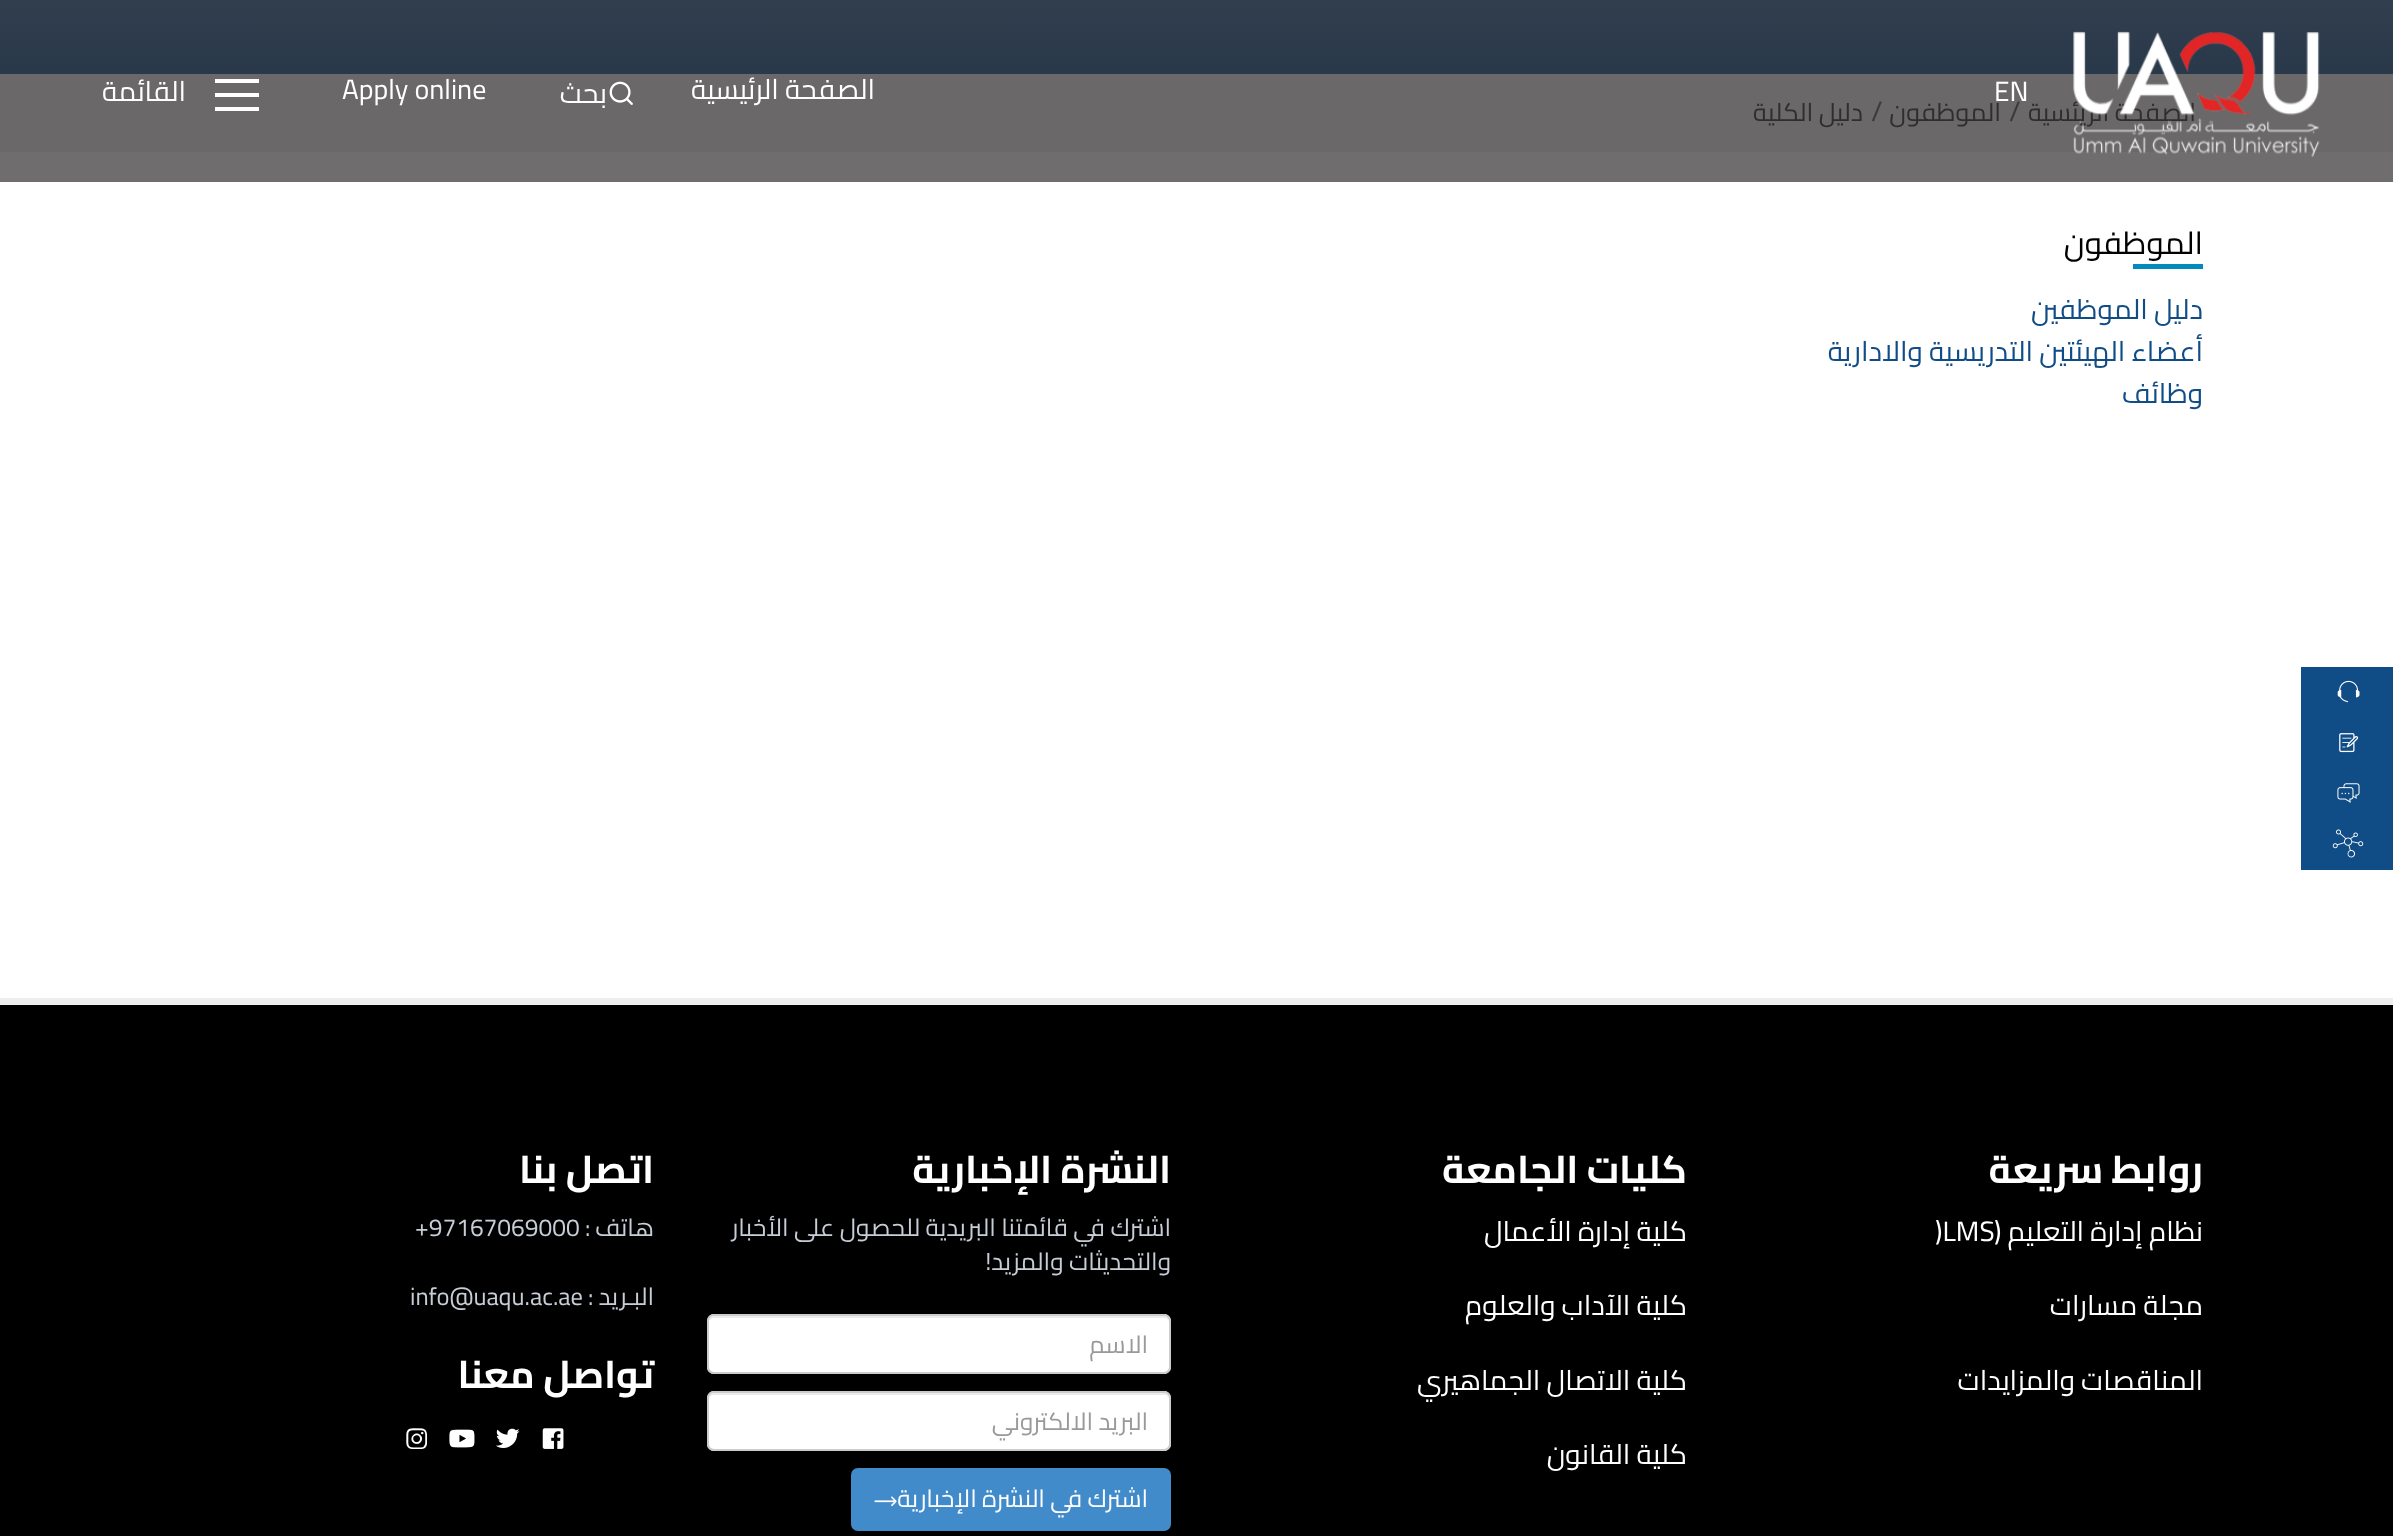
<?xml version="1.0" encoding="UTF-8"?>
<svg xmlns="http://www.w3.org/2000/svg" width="2393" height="1536">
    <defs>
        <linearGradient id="g1" gradientUnits="userSpaceOnUse" x1="1197" y1="196" x2="1197" y2="-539"><stop offset="0" stop-color="#1C2F44"/><stop offset="1" stop-color="#6B6869"/></linearGradient>
    </defs>
    <rect width="100%" height="100%" fill="#FFFFFF"/>
    <rect x="0" y="152" width="2393" height="30" fill="#706D6E"/>
    <rect x="0" y="0" width="2393" height="74" fill="url(#g1)"/>
    <rect x="0" y="74" width="2393" height="78" fill="#6A6868"/>
    <text x="2196" y="121" font-family="Cairo" font-size="25.25" direction="rtl" fill="#302D2E">الصفحة الريئسية</text>
    <image x="2073" y="31" width="247" height="126" href="img_01.png"/>
    <text x="1994" y="101" font-family="Cairo" font-size="28" fill="#FFFFFF">EN</text>
    <text x="875" y="99" font-family="Cairo" font-size="28" direction="rtl" fill="#FFFFFF">الصفحة الرئيسية</text>
    <image x="609" y="81" width="24" height="24" href="img_02.png"/>
    <text x="607" y="103" font-family="Cairo" font-size="28" direction="rtl" fill="#FFFFFF">بحث</text>
    <text x="342" y="99" font-family="Cairo" font-size="28" fill="#FFFFFF">Apply online</text>
    <rect x="215" y="79" width="44" height="4" fill="#FFFFFF"/>
    <rect x="215" y="93" width="44" height="4" fill="#FFFFFF"/>
    <rect x="215" y="107" width="44" height="4" fill="#FFFFFF"/>
    <text x="186" y="101" font-family="Cairo" font-size="28" direction="rtl" fill="#FFFFFF">القائمة</text>
    <text x="2009" y="121" font-family="Cairo" font-size="28" fill="#3C3A3A">/</text>
    <text x="2001" y="121" font-family="Cairo" font-size="25.25" direction="rtl" fill="#302D2E">الموظفون</text>
    <text x="1871" y="121" font-family="Cairo" font-size="28" fill="#3C3A3A">/</text>
    <text x="1863" y="121" font-family="Cairo" font-size="25.25" direction="rtl" fill="#302D2E">دليل الكلية</text>
    <text x="2203" y="254" font-family="Cairo" font-size="31.5" direction="rtl" fill="#000000">الموظفون</text>
    <rect x="2133" y="264" width="70" height="5" fill="#018ABB"/>
    <text font-family="Cairo" font-size="28" direction="rtl" fill="#104D87">
        <tspan x="2203" y="319">دليل الموظفين</tspan>
        <tspan x="2203" y="361">أعضاء الهيئتين التدريسية والادارية</tspan>
        <tspan x="2203" y="403">وظائف</tspan>
    </text>
    <rect x="2301" y="667" width="92" height="203" fill="#104D87"/>
    <image x="2337" y="680" width="23" height="23" href="img_03.png"/>
    <image x="2339" y="733" width="20" height="20" href="img_04.png"/>
    <image x="2337" y="783" width="23" height="20" href="img_05.png"/>
    <image x="2332" y="829" width="32" height="29" href="img_06.png"/>
    <rect x="0" y="998" width="2393" height="7" fill="#EEEEEE"/>
    <rect x="0" y="1005" width="2393" height="531" fill="#000000"/>
    <text x="2203" y="1183" font-family="Cairo" font-size="38.5" font-weight="700" direction="rtl" fill="#FFFFFF">روابط سريعة</text>
    <text x="2203" y="1241" font-family="Cairo" font-size="28" direction="rtl" fill="#FFFFFF">نظام إدارة التعليم (</text>
    <text x="1935" y="1241" font-family="Cairo" font-size="28" fill="#FFFFFF">)LMS</text>
    <text x="2203" y="1315" font-family="Cairo" font-size="28" direction="rtl" fill="#FFFFFF">مجلة مسارات</text>
    <text x="2203" y="1390" font-family="Cairo" font-size="28" direction="rtl" fill="#FFFFFF">المناقصات والمزايدات</text>
    <text x="1687" y="1183" font-family="Cairo" font-size="38.5" font-weight="700" direction="rtl" fill="#FFFFFF">كليات الجامعة</text>
    <text x="1687" y="1241" font-family="Cairo" font-size="28" direction="rtl" fill="#FFFFFF">كلية إدارة الأعمال</text>
    <text x="1687" y="1315" font-family="Cairo" font-size="28" direction="rtl" fill="#FFFFFF">كلية الآداب والعلوم</text>
    <text x="1687" y="1390" font-family="Cairo" font-size="28" direction="rtl" fill="#FFFFFF">كلية الاتصال الجماهيري</text>
    <text x="1687" y="1464" font-family="Cairo" font-size="28" direction="rtl" fill="#FFFFFF">كلية القانون</text>
    <text x="1171" y="1183" font-family="Cairo" font-size="38.5" font-weight="700" direction="rtl" fill="#FFFFFF">النشرة الإخبارية</text>
    <text font-family="Cairo" font-size="24.5" direction="rtl" fill="#C7CDD6">
        <tspan x="1171" y="1236">اشترك في قائمتنا البريدية للحصول على الأخبار</tspan>
        <tspan x="1171" y="1270">والتحديثات والمزيد!</tspan>
    </text>
    <rect x="707" y="1314" width="464" height="60" rx="7" fill="#FFFFFF"/>
    <path d="M 714 1318 H 1164 C 1167 1318 1169 1320 1169 1323 C 1169 1320 1168 1316 1164 1316 H 714 C 710 1316 709 1320 709 1323 C 709 1320 711 1318 714 1318 Z" fill="#EBEBEB"/>
    <rect x="708" y="1315" width="462" height="58" rx="6" fill="none" stroke="#CCCCCC" stroke-width="2"/>
    <text x="1148" y="1353" font-family="Cairo" font-size="24.5" direction="rtl" fill="#999999">الاسم</text>
    <rect x="707" y="1391" width="464" height="60" rx="7" fill="#FFFFFF"/>
    <path d="M 714 1395 H 1164 C 1167 1395 1169 1397 1169 1400 C 1169 1397 1168 1393 1164 1393 H 714 C 710 1393 709 1397 709 1400 C 709 1397 711 1395 714 1395 Z" fill="#EBEBEB"/>
    <rect x="708" y="1392" width="462" height="58" rx="6" fill="none" stroke="#CCCCCC" stroke-width="2"/>
    <text x="1148" y="1430" font-family="Cairo" font-size="24.5" direction="rtl" fill="#999999">البريد الالكتروني</text>
    <rect x="851" y="1468" width="320" height="63" rx="7" fill="#428BCA"/>
    <text x="1148" y="1507" font-family="Cairo" font-size="24.5" direction="rtl" fill="#FFFFFF">اشترك في النشرة الإخبارية</text>
    <image x="874" y="1496" width="23" height="11" href="img_07.png"/>
    <text x="654" y="1183" font-family="Cairo" font-size="38.5" font-weight="700" direction="rtl" fill="#FFFFFF">اتصل بنا</text>
    <text x="654" y="1236" font-family="Cairo" font-size="24.5" direction="rtl" fill="#C7CDD6">هاتف</text>
    <text x="585" y="1236" font-family="Cairo" font-size="24.5" fill="#C7CDD6">:</text>
    <text x="415" y="1236" font-family="Cairo" font-size="24.5" fill="#C7CDD6">+97167069000</text>
    <text x="654" y="1305" font-family="Cairo" font-size="24.5" direction="rtl" fill="#C7CDD6">البـريد</text>
    <text x="588" y="1305" font-family="Cairo" font-size="24.5" fill="#C7CDD6">:</text>
    <text x="410" y="1305" font-family="Cairo" font-size="24.5" fill="#C7CDD6">info@uaqu.ac.ae</text>
    <text x="654" y="1388" font-family="Cairo" font-size="38.5" font-weight="700" direction="rtl" fill="#FFFFFF">تواصل معنا</text>
    <image x="542" y="1428" width="22" height="21" href="img_08.png"/>
    <image x="496" y="1428" width="24" height="20" href="img_09.png"/>
    <image x="449" y="1429" width="26" height="19" href="img_10.png"/>
    <image x="406" y="1428" width="22" height="21" href="img_11.png"/>
</svg>
